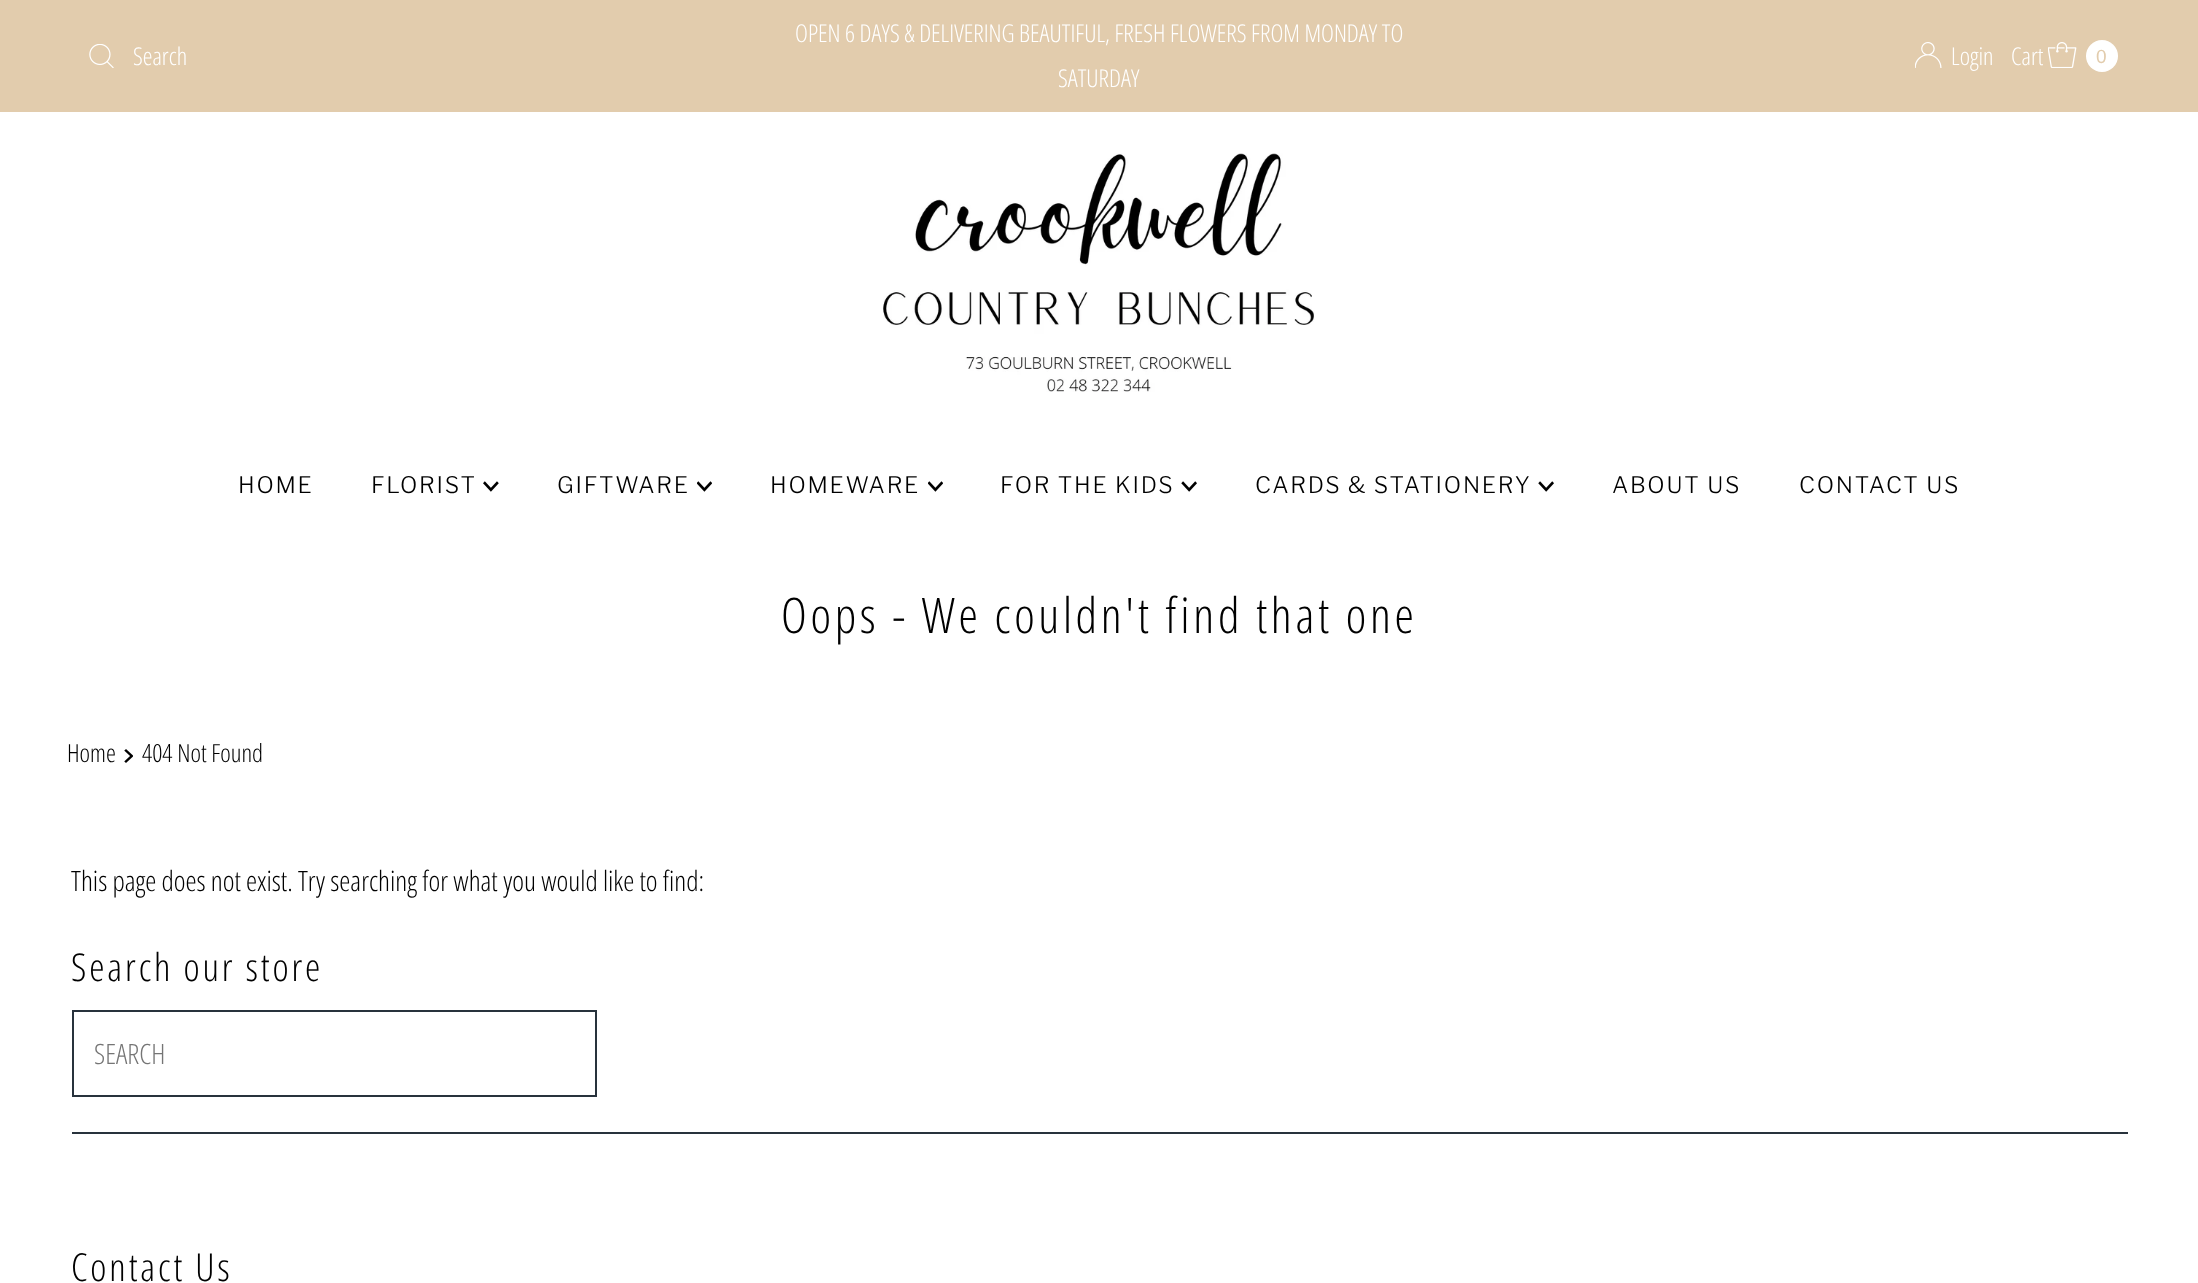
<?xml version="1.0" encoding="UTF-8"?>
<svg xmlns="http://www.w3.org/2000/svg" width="2198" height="1283">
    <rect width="100%" height="100%" fill="#FFFFFF"/>
    <rect x="0" y="0" width="2198" height="112" fill="#E2CCAD"/>
    <image x="89" y="44" width="25" height="24" href="img_01.png"/>
    <text x="133" y="65" font-family="Open Sans Condensed" font-size="24.5" font-weight="300" fill="#FFFFFF">Search</text>
    <text x="795" y="42" font-family="Open Sans Condensed" font-size="24.5" font-weight="300" fill="#FFFFFF">OPEN 6 DAYS &amp; DELIVERING BEAUTIFUL, FRESH FLOWERS FROM MONDAY TO</text>
    <text x="1058" y="87" font-family="Open Sans Condensed" font-size="24.5" font-weight="300" fill="#FFFFFF">SATURDAY</text>
    <image x="1915" y="42" width="27" height="26" href="img_02.png"/>
    <text x="1951" y="65" font-family="Open Sans Condensed" font-size="24.5" font-weight="300" fill="#FFFFFF">Login</text>
    <text x="2011" y="65" font-family="Open Sans Condensed" font-size="24.5" font-weight="300" fill="#FFFFFF">Cart</text>
    <image x="2048" y="42" width="29" height="26" href="img_03.png"/>
    <circle cx="2102" cy="56" r="16" fill="#FFFFFF"/>
    <text x="2096" y="63" font-family="Liberation Sans" font-size="19" fill="#E2CCAD">0</text>
    <image x="883" y="153" width="432" height="239" href="img_04.png"/>
    <text x="238" y="493" font-family="Libre Franklin" font-size="22.75" font-weight="300" letter-spacing="1.75" fill="#000000">HOME</text>
    <text x="371" y="493" font-family="Libre Franklin" font-size="22.75" font-weight="300" letter-spacing="1.75" fill="#000000">FLORIST</text>
    <image x="483" y="481" width="16" height="11" href="img_05.png"/>
    <text x="557" y="493" font-family="Libre Franklin" font-size="22.75" font-weight="300" letter-spacing="1.75" fill="#000000">GIFTWARE</text>
    <image x="697" y="481" width="15" height="11" href="img_06.png"/>
    <text x="770" y="493" font-family="Libre Franklin" font-size="22.75" font-weight="300" letter-spacing="1.75" fill="#000000">HOMEWARE</text>
    <image x="928" y="481" width="15" height="11" href="img_06.png"/>
    <text x="1000" y="493" font-family="Libre Franklin" font-size="22.75" font-weight="300" letter-spacing="1.75" fill="#000000">FOR THE KIDS</text>
    <image x="1181" y="481" width="16" height="11" href="img_07.png"/>
    <text x="1255" y="493" font-family="Libre Franklin" font-size="22.75" font-weight="300" letter-spacing="1.75" fill="#000000">CARDS &amp; STATIONERY</text>
    <image x="1538" y="481" width="16" height="11" href="img_07.png"/>
    <text x="1612" y="493" font-family="Libre Franklin" font-size="22.75" font-weight="300" letter-spacing="1.75" fill="#000000">ABOUT US</text>
    <text x="1799" y="493" font-family="Libre Franklin" font-size="22.75" font-weight="300" letter-spacing="1.75" fill="#000000">CONTACT US</text>
    <text x="781" y="633" font-family="Open Sans Condensed" font-size="49" font-weight="300" letter-spacing="3.7" fill="#000000">Oops - We couldn't find that one</text>
    <text x="67" y="762" font-family="Open Sans Condensed" font-size="25" font-weight="300" fill="#000000">Home</text>
    <image x="124" y="749" width="9" height="14" href="img_08.png"/>
    <text x="142" y="762" font-family="Open Sans Condensed" font-size="25" font-weight="300" fill="#000000">404 Not Found</text>
    <text x="71" y="891" font-family="Open Sans Condensed" font-size="28" font-weight="300" fill="#000000">This page does not exist. Try searching for what you would like to find:</text>
    <rect x="72" y="1132" width="2056" height="2" fill="#28323C"/>
    <text x="71" y="981" font-family="Open Sans Condensed" font-size="38.5" font-weight="300" letter-spacing="2.9" fill="#000000">Search our store</text>
    <rect x="73" y="1011" width="523" height="85" fill="none" stroke="#28323C" stroke-width="2"/>
    <text x="94" y="1064" font-family="Open Sans Condensed" font-size="28" font-weight="300" fill="#757575">SEARCH</text>
    <text x="71" y="1281" font-family="Open Sans Condensed" font-size="38.5" font-weight="300" letter-spacing="2.9" fill="#000000">Contact Us</text>
</svg>
